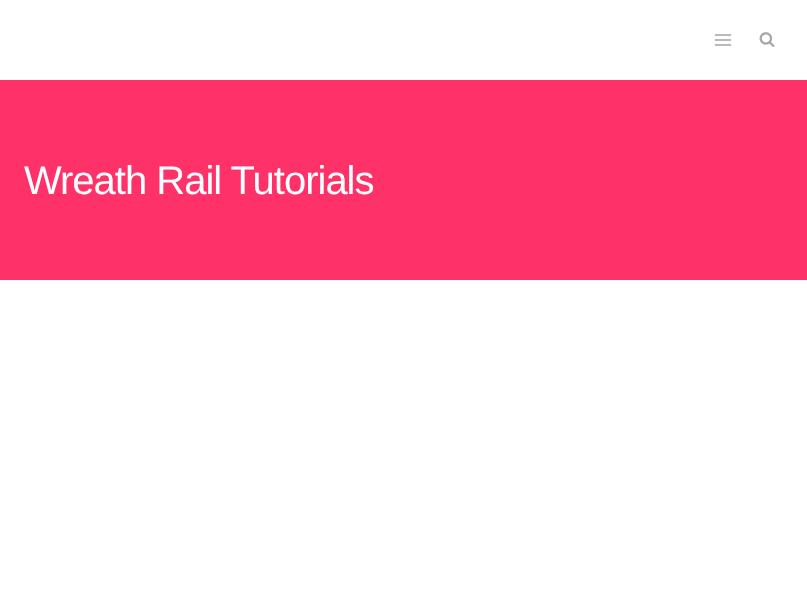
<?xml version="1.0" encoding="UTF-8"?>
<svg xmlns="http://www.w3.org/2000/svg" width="807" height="616">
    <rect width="100%" height="100%" fill="#FFFFFF"/>
    <image x="714" y="34" width="18" height="12" href="img_01.png"/>
    <image x="759" y="32" width="16" height="15" href="img_02.png"/>
    <rect x="0" y="80" width="807" height="200" fill="#FF3169"/>
    <text x="24" y="194" font-family="Liberation Sans" font-size="40" letter-spacing="-1" fill="#FFFFFF">Wreath Rail Tutorials</text>
</svg>
